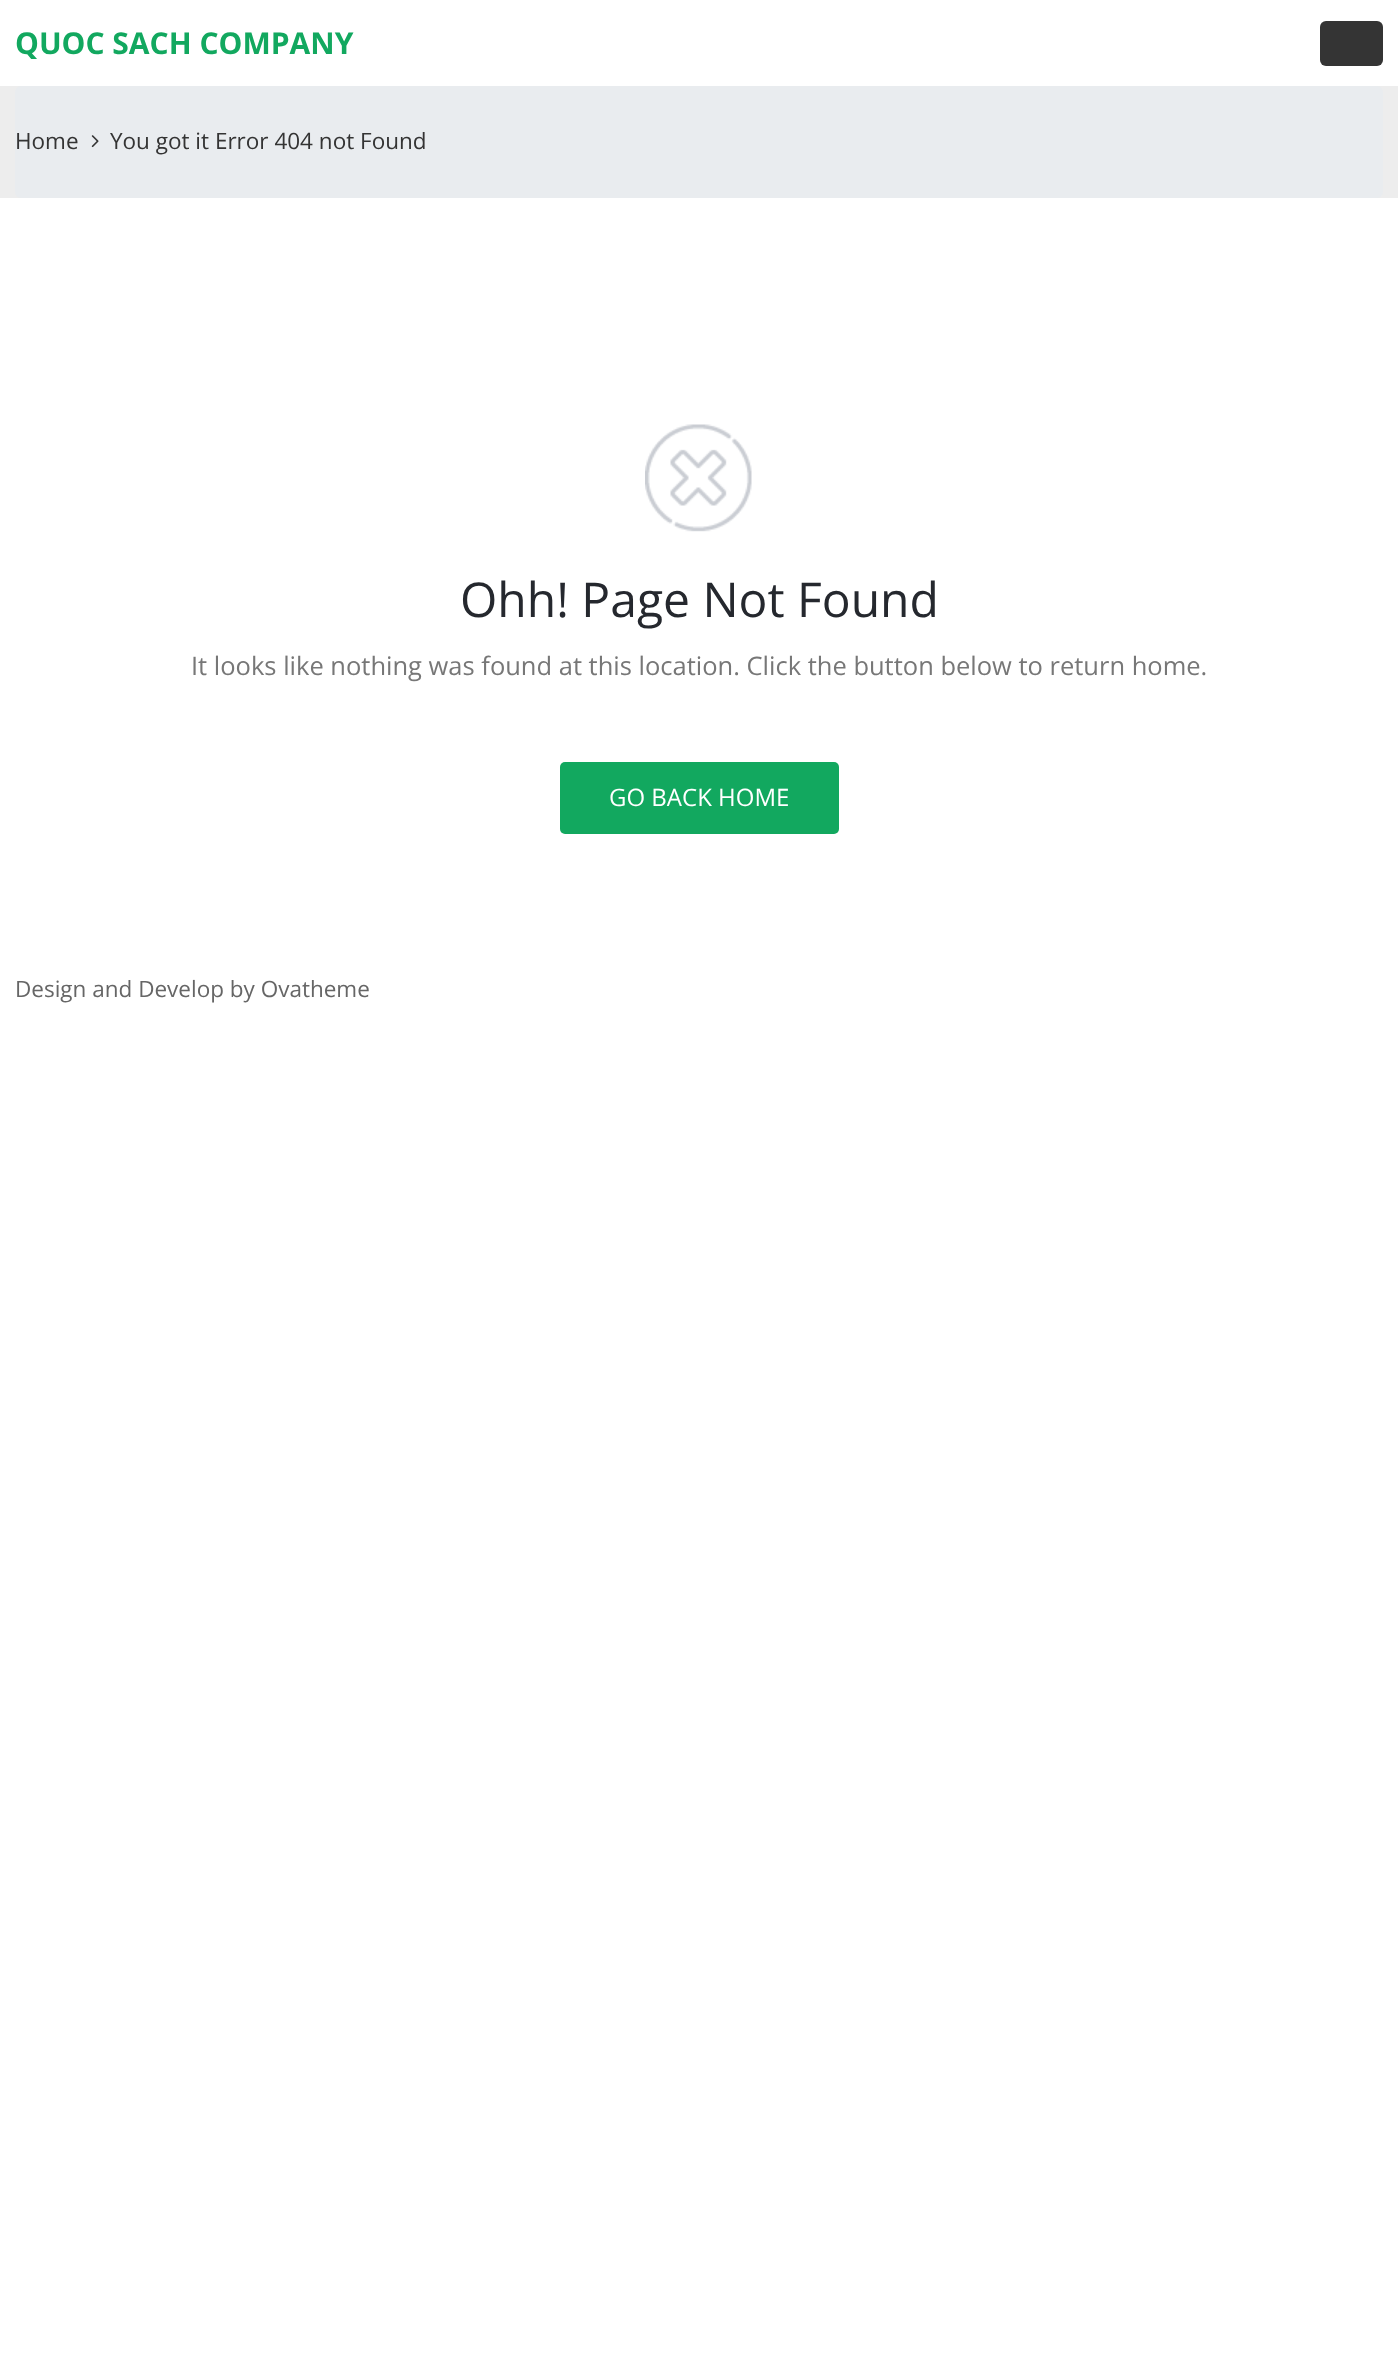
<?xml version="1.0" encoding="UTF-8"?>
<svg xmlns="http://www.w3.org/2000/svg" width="1398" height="2378">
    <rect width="100%" height="100%" fill="#FFFFFF"/>
    <text x="15" y="54" font-family="Open Sans" font-size="30" font-weight="700" fill="#12A85F">QUOC SACH COMPANY</text>
    <rect x="1320" y="21" width="63" height="45" rx="6" fill="#343434"/>
    <rect x="0" y="86" width="1398" height="112" fill="#EDEDED"/>
    <rect x="15" y="86" width="1368" height="112" rx="6" fill="#E9ECEF"/>
    <text x="15" y="149" font-family="Open Sans" font-size="22.5" fill="#343434">Home</text>
    <image x="91" y="135" width="8" height="13" href="img_01.png"/>
    <text x="110" y="149" font-family="Open Sans" font-size="22.5" fill="#343434">You got it Error 404 not Found</text>
    <image x="645" y="424" width="107" height="108" href="img_02.png"/>
    <text x="460" y="617" font-family="Open Sans" font-size="48" fill="#25282E">Ohh! Page Not Found</text>
    <text x="191" y="675" font-family="Open Sans" font-size="25.5" fill="#777777">It looks like nothing was found at this location. Click the button below to return home.</text>
    <rect x="560" y="762" width="279" height="72" rx="5" fill="#12A85F"/>
    <text x="609" y="806" font-family="Open Sans" font-size="24" fill="#FFFFFF">GO BACK HOME</text>
    <text x="15" y="997" font-family="Open Sans" font-size="22.5" fill="#666666">Design and Develop by Ovatheme</text>
</svg>
